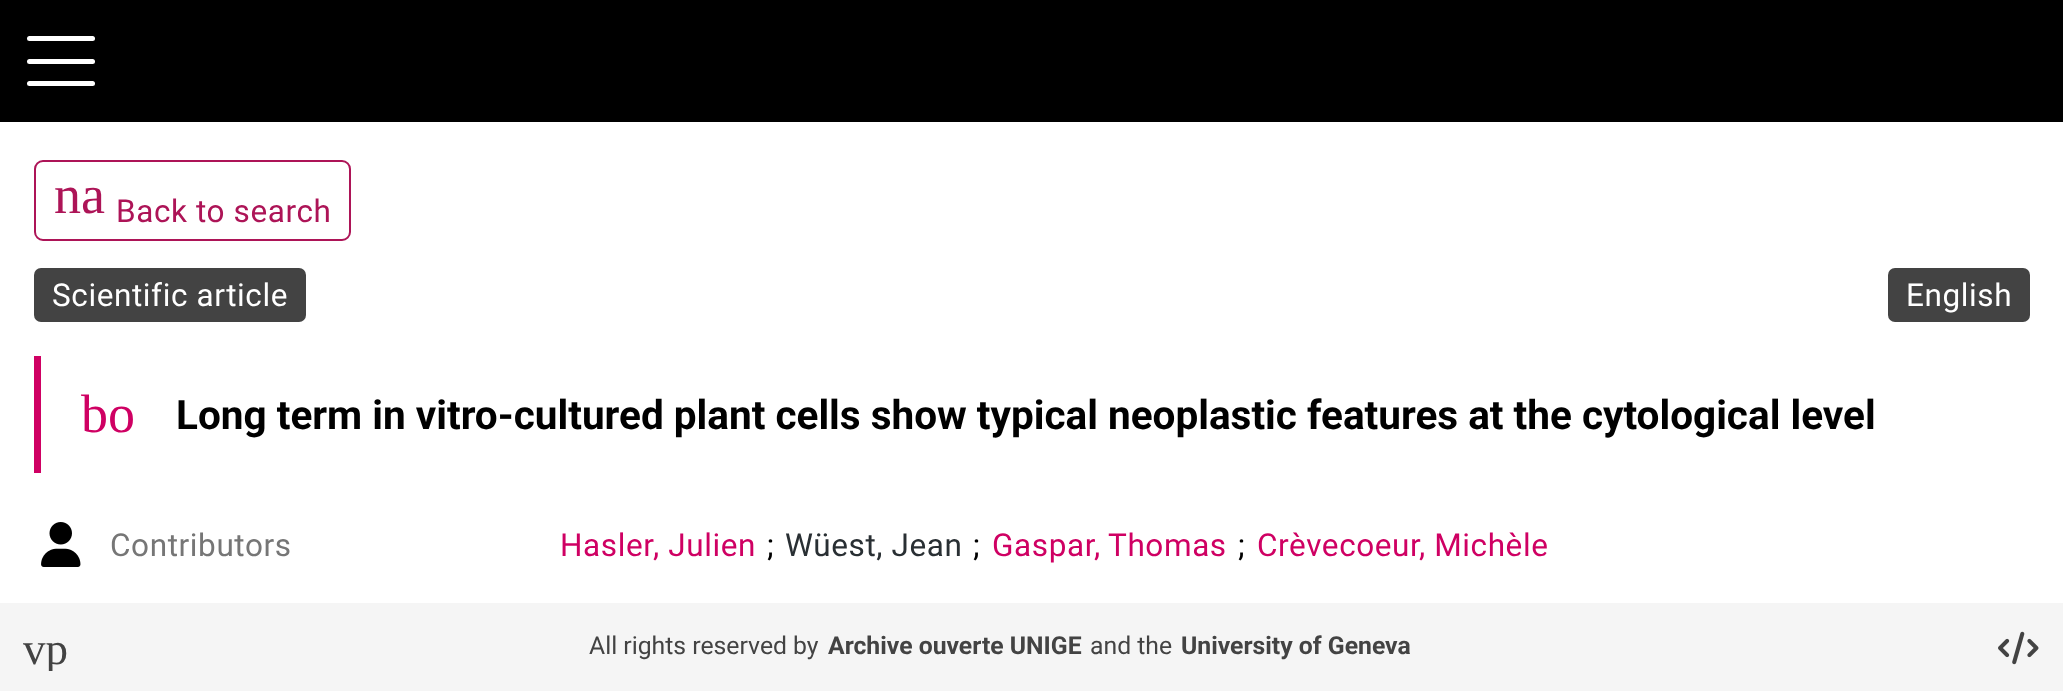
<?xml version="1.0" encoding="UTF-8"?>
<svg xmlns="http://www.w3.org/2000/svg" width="2063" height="691">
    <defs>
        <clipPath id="clip1"><rect x="23" y="626" width="45" height="45"/></clipPath>
    </defs>
    <rect width="100%" height="100%" fill="#FFFFFF"/>
    <rect x="0" y="0" width="2063" height="122" fill="#000000"/>
    <rect x="27" y="36" width="68" height="5" rx="2.5" fill="#FFFFFF"/>
    <rect x="27" y="59" width="68" height="5" rx="2.5" fill="#FFFFFF"/>
    <rect x="27" y="81" width="68" height="5" rx="2.5" fill="#FFFFFF"/>
    <rect x="35" y="161" width="315" height="79" rx="8" fill="none" stroke="#AD1457" stroke-width="2"/>
    <text x="54" y="213" font-family="Liberation Serif" font-size="54" fill="#AD1457">na</text>
    <text x="116" y="222" font-family="Roboto" font-size="31.5" letter-spacing="0.6" fill="#AD1457">Back to search</text>
    <rect x="34" y="268" width="272" height="54" rx="7" fill="#434343"/>
    <text x="52" y="306" font-family="Roboto" font-size="31.5" letter-spacing="0.6" fill="#FFFFFF">Scientific article</text>
    <rect x="1888" y="268" width="142" height="54" rx="7" fill="#434343"/>
    <text x="1906" y="306" font-family="Roboto" font-size="31.5" letter-spacing="0.6" fill="#FFFFFF">English</text>
    <rect x="34" y="356" width="7" height="117" fill="#CF0063"/>
    <text x="81" y="432" font-family="Liberation Serif" font-size="54" fill="#CF0063">bo</text>
    <text x="176" y="429" font-family="Roboto" font-size="40.5" font-weight="700" fill="#000000">Long term in vitro-cultured plant cells show typical neoplastic features at the cytological level</text>
    <image x="41" y="522" width="40" height="45" href="img_01.png"/>
    <text x="110" y="556" font-family="Roboto" font-size="31.5" letter-spacing="0.6" fill="#767676">Contributors</text>
    <text x="560" y="556" font-family="Roboto" font-size="31.5" letter-spacing="0.6" fill="#CF0063">Hasler</text>
    <text x="653" y="556" font-family="Roboto" font-size="31.5" letter-spacing="0.6" fill="#CF0063">, Julien</text>
    <text x="767" y="556" font-family="Roboto" font-size="31.5" letter-spacing="0.6" fill="#000000">;</text>
    <text x="785" y="556" font-family="Roboto" font-size="31.5" letter-spacing="0.6" fill="#292F33">Wüest, Jean</text>
    <text x="973" y="556" font-family="Roboto" font-size="31.5" letter-spacing="0.6" fill="#000000">;</text>
    <text x="992" y="556" font-family="Roboto" font-size="31.5" letter-spacing="0.6" fill="#CF0063">Gaspar</text>
    <text x="1094" y="556" font-family="Roboto" font-size="31.5" letter-spacing="0.6" fill="#CF0063">,</text>
    <text x="1108" y="556" font-family="Roboto" font-size="31.5" letter-spacing="0.6" fill="#CF0063">Thomas</text>
    <text x="1238" y="556" font-family="Roboto" font-size="31.5" letter-spacing="0.6" fill="#000000">;</text>
    <text x="1257" y="556" font-family="Roboto" font-size="31.5" letter-spacing="0.6" fill="#CF0063">Crèvecoeur</text>
    <text x="1419" y="556" font-family="Roboto" font-size="31.5" letter-spacing="0.6" fill="#CF0063">, Michèle</text>
    <rect x="0" y="603" width="2063" height="88" fill="#F5F5F5"/>
    <g clip-path="url(#clip1)">
        <text x="23" y="664" font-family="Liberation Serif" font-size="45" fill="#434343">vp</text>
    </g>
    <text x="589" y="654" font-family="Roboto" font-size="24.75" fill="#434343">All rights reserved by</text>
    <text x="828" y="654" font-family="Roboto" font-size="24.75" font-weight="700" fill="#434343">Archive ouverte UNIGE</text>
    <text x="1090" y="654" font-family="Roboto" font-size="24.75" fill="#434343">and the</text>
    <text x="1181" y="654" font-family="Roboto" font-size="24.75" font-weight="700" fill="#434343">University of Geneva</text>
    <image x="1998" y="631" width="41" height="34" href="img_02.png"/>
</svg>
